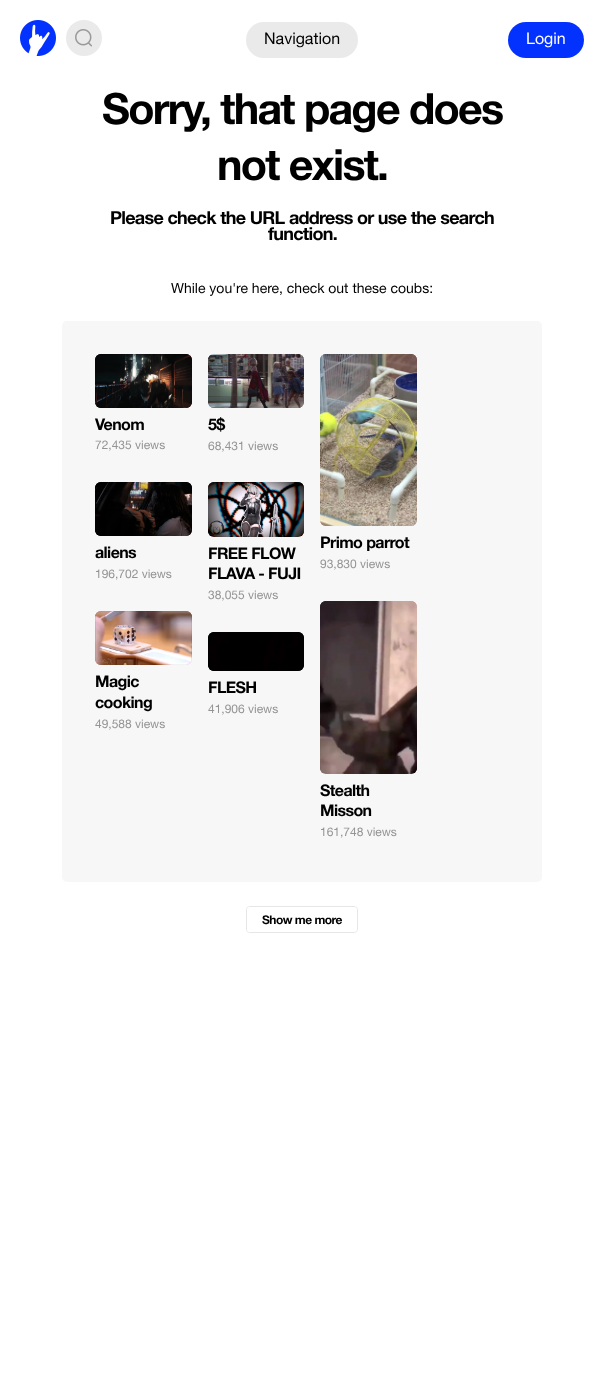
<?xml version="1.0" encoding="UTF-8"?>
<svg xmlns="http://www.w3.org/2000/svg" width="604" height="1389">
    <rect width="100%" height="100%" fill="#FFFFFF"/>
    <image x="20" y="20" width="36" height="36" href="img_01.png"/>
    <circle cx="84" cy="38" r="18" fill="#EAEAEA"/>
    <image x="75" y="29" width="17" height="18" href="img_02.png"/>
    <rect x="246" y="22" width="112" height="36" rx="18" fill="#EAEAEA"/>
    <text x="264" y="44" font-family="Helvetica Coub" font-size="16" fill="#000000">Navigation</text>
    <rect x="508" y="22" width="76" height="36" rx="18" fill="#0332FF"/>
    <text x="526" y="44" font-family="Helvetica Coub" font-size="16" fill="#FFFFFF">Login</text>
    <text x="102" y="124" font-family="Helvetica Coub" font-size="43" font-weight="700" letter-spacing="-1.75" fill="#000000">Sorry, that page does</text>
    <text x="217" y="180" font-family="Helvetica Coub" font-size="43" font-weight="700" letter-spacing="-1.75" fill="#000000">not exist.</text>
    <text x="110" y="224" font-family="Helvetica Coub" font-size="18" font-weight="700" letter-spacing="-0.7" fill="#000000">Please check the URL address or use the search</text>
    <text x="268" y="240" font-family="Helvetica Coub" font-size="18" font-weight="700" letter-spacing="-0.7" fill="#000000">function.</text>
    <text x="171" y="293" font-family="Helvetica Coub" font-size="14" fill="#000000">While you're here, check out these coubs:</text>
    <rect x="62" y="321" width="480" height="561" rx="5" fill="#F7F7F7"/>
    <image x="95" y="354" width="97" height="54" href="img_03.png"/>
    <image x="95" y="354" width="97" height="54" href="img_04.png"/>
    <text x="95" y="430" font-family="Helvetica Coub" font-size="16" font-weight="700" letter-spacing="-0.6" fill="#000000">Venom</text>
    <text x="95" y="449" font-family="Helvetica Coub" font-size="12" fill="#949494">72,435 views</text>
    <image x="208" y="354" width="96" height="54" href="img_05.png"/>
    <image x="208" y="354" width="96" height="54" href="img_06.png"/>
    <text x="208" y="430" font-family="Helvetica Coub" font-size="16" font-weight="700" letter-spacing="-0.6" fill="#000000">5$</text>
    <text x="208" y="450" font-family="Helvetica Coub" font-size="12" fill="#949494">68,431 views</text>
    <image x="95" y="482" width="97" height="54" href="img_07.png"/>
    <image x="95" y="482" width="97" height="54" href="img_08.png"/>
    <text x="95" y="558" font-family="Helvetica Coub" font-size="16" font-weight="700" letter-spacing="-0.6" fill="#000000">aliens</text>
    <text x="95" y="578" font-family="Helvetica Coub" font-size="12" fill="#949494">196,702 views</text>
    <image x="208" y="482" width="96" height="55" href="img_09.png"/>
    <image x="208" y="482" width="96" height="54" href="img_10.png"/>
    <text font-family="Helvetica Coub" font-size="16" font-weight="700" letter-spacing="-0.6" fill="#000000">
        <tspan x="208" y="559">FREE FLOW</tspan>
        <tspan x="208" y="579">FLAVA - FUJI</tspan>
    </text>
    <text x="208" y="599" font-family="Helvetica Coub" font-size="12" fill="#949494">38,055 views</text>
    <image x="320" y="354" width="97" height="172" href="img_11.png"/>
    <image x="320" y="354" width="97" height="172" href="img_12.png"/>
    <text x="320" y="548" font-family="Helvetica Coub" font-size="16" font-weight="700" letter-spacing="-0.6" fill="#000000">Primo parrot</text>
    <text x="320" y="568" font-family="Helvetica Coub" font-size="12" fill="#949494">93,830 views</text>
    <image x="95" y="611" width="97" height="54" href="img_13.png"/>
    <image x="95" y="611" width="97" height="54" href="img_14.png"/>
    <text font-family="Helvetica Coub" font-size="16" font-weight="700" letter-spacing="-0.6" fill="#000000">
        <tspan x="95" y="687">Magic</tspan>
        <tspan x="95" y="708">cooking</tspan>
    </text>
    <text x="95" y="728" font-family="Helvetica Coub" font-size="12" fill="#949494">49,588 views</text>
    <image x="208" y="632" width="96" height="39" href="img_15.png"/>
    <image x="208" y="632" width="96" height="39" href="img_16.png"/>
    <text x="208" y="693" font-family="Helvetica Coub" font-size="16" font-weight="700" letter-spacing="-0.6" fill="#000000">FLESH</text>
    <text x="208" y="713" font-family="Helvetica Coub" font-size="12" fill="#949494">41,906 views</text>
    <image x="320" y="601" width="97" height="173" href="img_17.png"/>
    <image x="320" y="601" width="97" height="172" href="img_18.png"/>
    <text font-family="Helvetica Coub" font-size="16" font-weight="700" letter-spacing="-0.6" fill="#000000">
        <tspan x="320" y="796">Stealth</tspan>
        <tspan x="320" y="816">Misson</tspan>
    </text>
    <text x="320" y="836" font-family="Helvetica Coub" font-size="12" fill="#949494">161,748 views</text>
    <rect x="246.5" y="906.5" width="111" height="26" rx="3.5" fill="none" stroke="#E6E6E6"/>
    <rect x="247" y="907" width="110" height="25" rx="3" fill="#FFFFFF"/>
    <text x="262" y="924" font-family="Helvetica Coub" font-size="12" font-weight="700" letter-spacing="-0.5" fill="#000000">Show me more</text>
</svg>
